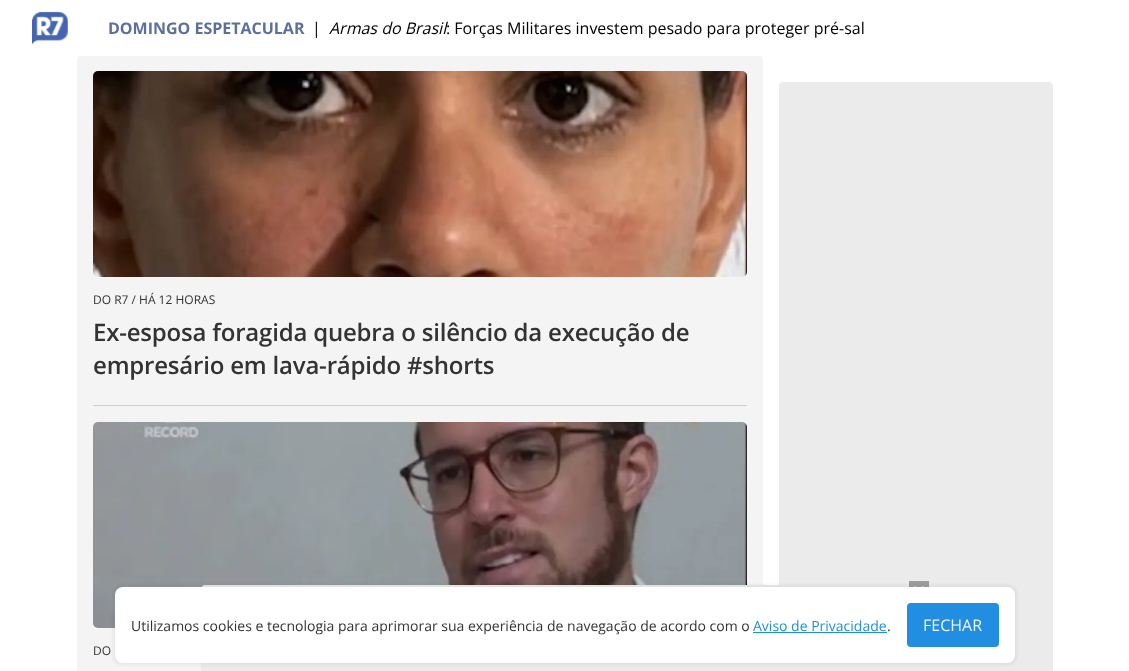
<?xml version="1.0" encoding="UTF-8"?>
<svg xmlns="http://www.w3.org/2000/svg" width="1129" height="671">
    <defs>
        <clipPath id="clip1"><rect x="779" y="82" width="274" height="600" rx="4"/></clipPath>
        <linearGradient id="g1" gradientUnits="userSpaceOnUse" x1="506" y1="382" x2="780" y2="382"><stop offset="0" stop-color="#EBEBEB"/><stop offset="0.5" stop-color="#F5F5F5"/><stop offset="1" stop-color="#EBEBEB"/></linearGradient>
        <filter id="blur1" x="-50%" y="-200%" width="200%" height="500%"><feGaussianBlur stdDeviation="1.5"/></filter>
    </defs>
    <rect width="100%" height="100%" fill="#FFFFFF"/>
    <rect x="77" y="55" width="686" height="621" rx="5" fill="#F4F4F4"/>
    <rect x="79" y="55" width="682" height="1" fill="#FFFFFF"/>
    <image x="32" y="11" width="36" height="34" href="img_01.png"/>
    <text x="108" y="34" font-family="Open Sans" font-size="16" font-weight="700" fill="#5D6F9D">DOMINGO ESPETACULAR</text>
    <text x="312" y="34" font-family="Open Sans" font-size="16" fill="#000000">|</text>
    <text x="329" y="34" font-family="Open Sans" font-size="16" font-style="italic" fill="#000000">Armas do Brasil</text>
    <text x="446" y="34" font-family="Open Sans" font-size="16" fill="#000000">: Forças Militares investem pesado para proteger pré-sal</text>
    <rect x="93" y="405" width="654" height="1" fill="#CECECE"/>
    <image x="93" y="71" width="654" height="206" href="img_02.png"/>
    <text x="93" y="304" font-family="Open Sans" font-size="12" fill="#333333">DO R7 / HÁ 12 HORAS</text>
    <text font-family="Open Sans" font-size="24" font-weight="600" letter-spacing="-0.2" fill="#333333">
        <tspan x="93" y="341">Ex-esposa foragida quebra o silêncio da execução de</tspan>
        <tspan x="93" y="374">empresário em lava-rápido #shorts</tspan>
    </text>
    <image x="93" y="422" width="654" height="206" href="img_03.png"/>
    <text x="93" y="655" font-family="Open Sans" font-size="12" fill="#333333">DO</text>
    <path d="M 783 82 H 1049 C 1051 82 1053 84 1053 86 V 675 H 779 V 86 C 779 84 781 82 783 82 Z" fill="#EBEBEB"/>
    <g clip-path="url(#clip1)">
        <rect x="779" y="82" width="1" height="503" fill="url(#g1)"/>
    </g>
    <path d="M 205 585 H 925 C 927 585 929 587 929 589 V 671 H 201 V 589 C 201 587 203 585 205 585 Z" fill="#EBEBEB"/>
    <rect x="909" y="581" width="20" height="6" fill="#9D9D9D"/>
    <image x="914" y="586" width="10" height="1" href="img_04.png"/>
    <rect x="113" y="585" width="904" height="80" rx="10" fill="#333333" fill-opacity="0.08" filter="url(#blur1)"/>
    <rect x="115" y="587" width="900" height="76" rx="8" fill="#FFFFFF"/>
    <text x="131" y="631" font-family="Open Sans" font-size="14" fill="#333333">Utilizamos cookies e tecnologia para aprimorar sua experiência de navegação de acordo com o</text>
    <text x="753" y="631" font-family="Open Sans" font-size="14" fill="#218EE1">Aviso de Privacidade</text>
    <rect x="753" y="632" width="134" height="1" fill="#218EE1"/>
    <text x="887" y="631" font-family="Open Sans" font-size="14" fill="#333333">.</text>
    <rect x="907" y="603" width="92" height="44" rx="4" fill="#218EE1"/>
    <text x="923" y="631" font-family="Open Sans" font-size="16" fill="#F0F2F3">FECHAR</text>
</svg>
